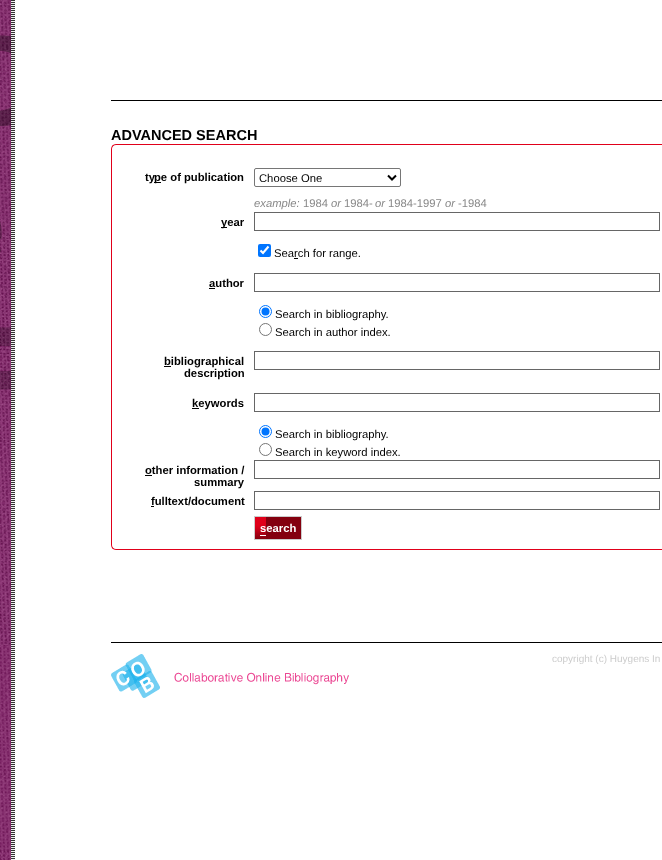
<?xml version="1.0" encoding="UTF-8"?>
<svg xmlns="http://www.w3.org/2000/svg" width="662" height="860">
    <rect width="100%" height="100%" fill="#FFFFFF"/>
    <image x="0" y="645" width="11" height="215" href="img_01.png"/>
    <image x="11" y="0" width="4" height="860" href="img_02.png"/>
    <image x="0" y="0" width="11" height="645" href="img_03.png"/>
    <rect x="111" y="100" width="551" height="1" fill="#000000"/>
    <text x="111" y="140" font-family="Liberation Sans" font-size="14.5" font-weight="700" fill="#000000">ADVANCED SEARCH</text>
    <image x="111" y="144" width="551" height="18" href="img_04.png"/>
    <image x="111" y="162" width="551" height="388" href="img_05.png"/>
    <text x="145" y="181" font-family="Liberation Sans" font-size="11.25" font-weight="700" fill="#000000">ty</text>
    <rect x="154" y="182" width="7" height="1" fill="#000000"/>
    <text x="154" y="181" font-family="Liberation Sans" font-size="11.25" font-weight="700" fill="#000000">pe of publication</text>
    <rect x="254.5" y="168.5" width="146" height="18" rx="1.5" fill="none" stroke="#767676"/>
    <path d="M 388 175.5 L 392 179.5 L 396 175.5" fill="none" stroke="#000000" stroke-width="2"/>
    <text x="259" y="182" font-family="Liberation Sans" font-size="11.25" fill="#000000">Choose One</text>
    <text x="254" y="207" font-family="Liberation Sans" font-size="11.25" font-style="italic" fill="#888888">example:</text>
    <text x="303" y="207" font-family="Liberation Sans" font-size="11.25" fill="#888888">1984</text>
    <text x="331" y="207" font-family="Liberation Sans" font-size="11.25" font-style="italic" fill="#888888">or</text>
    <text x="344" y="207" font-family="Liberation Sans" font-size="11.25" fill="#888888">1984-</text>
    <text x="375" y="207" font-family="Liberation Sans" font-size="11.25" font-style="italic" fill="#888888">or</text>
    <text x="388" y="207" font-family="Liberation Sans" font-size="11.25" fill="#888888">1984-1997</text>
    <text x="445" y="207" font-family="Liberation Sans" font-size="11.25" font-style="italic" fill="#888888">or</text>
    <text x="458" y="207" font-family="Liberation Sans" font-size="11.25" fill="#888888">-1984</text>
    <rect x="221" y="227" width="6" height="1" fill="#000000"/>
    <text x="221" y="226" font-family="Liberation Sans" font-size="11.25" font-weight="700" fill="#000000">year</text>
    <rect x="254.5" y="212.5" width="405" height="18" fill="none" stroke="#666666"/>
    <rect x="258" y="244" width="13" height="13" rx="2" fill="#0075FF"/>
    <path d="M 260.5 250.5 L 263 253 L 268.5 246.5" fill="none" stroke="#FFFFFF" stroke-width="2.1"/>
    <text x="274" y="257" font-family="Liberation Sans" font-size="11.25" fill="#000000">Search for range.</text>
    <rect x="294" y="258" width="4" height="1" fill="#000000"/>
    <text x="209" y="287" font-family="Liberation Sans" font-size="11.25" font-weight="700" fill="#000000">author</text>
    <rect x="209" y="288" width="6" height="1" fill="#000000"/>
    <rect x="254.5" y="273.5" width="405" height="18" fill="none" stroke="#666666"/>
    <circle cx="265.5" cy="311.5" r="6" fill="none" stroke="#0075FF"/>
    <circle cx="265.5" cy="311.5" r="4" fill="#0075FF"/>
    <text x="275" y="318" font-family="Liberation Sans" font-size="11.25" fill="#000000">Search in bibliography.</text>
    <circle cx="265.5" cy="329.5" r="6" fill="none" stroke="#767676"/>
    <text x="275" y="336" font-family="Liberation Sans" font-size="11.25" fill="#000000">Search in author index.</text>
    <rect x="164" y="366" width="7" height="1" fill="#000000"/>
    <text x="164" y="365" font-family="Liberation Sans" font-size="11.25" font-weight="700" fill="#000000">bibliographical</text>
    <text x="184" y="377" font-family="Liberation Sans" font-size="11.25" font-weight="700" fill="#000000">description</text>
    <rect x="254.5" y="351.5" width="405" height="18" fill="none" stroke="#666666"/>
    <rect x="192" y="408" width="7" height="1" fill="#000000"/>
    <text x="192" y="407" font-family="Liberation Sans" font-size="11.25" font-weight="700" fill="#000000">keywords</text>
    <rect x="254.5" y="393.5" width="405" height="18" fill="none" stroke="#666666"/>
    <circle cx="265.5" cy="431.5" r="6" fill="none" stroke="#0075FF"/>
    <circle cx="265.5" cy="431.5" r="4" fill="#0075FF"/>
    <text x="275" y="438" font-family="Liberation Sans" font-size="11.25" fill="#000000">Search in bibliography.</text>
    <circle cx="265.5" cy="449.5" r="6" fill="none" stroke="#767676"/>
    <text x="275" y="456" font-family="Liberation Sans" font-size="11.25" fill="#000000">Search in keyword index.</text>
    <text x="145" y="474" font-family="Liberation Sans" font-size="11.25" font-weight="700" fill="#000000">other information /</text>
    <rect x="145" y="475" width="7" height="1" fill="#000000"/>
    <text x="194" y="486" font-family="Liberation Sans" font-size="11.25" font-weight="700" fill="#000000">summary</text>
    <rect x="254.5" y="460.5" width="405" height="18" fill="none" stroke="#666666"/>
    <text x="151" y="505" font-family="Liberation Sans" font-size="11.25" font-weight="700" fill="#000000">fulltext/document</text>
    <rect x="151" y="506" width="3" height="1" fill="#000000"/>
    <rect x="254.5" y="491.5" width="405" height="18" fill="none" stroke="#666666"/>
    <image x="255" y="517" width="11" height="22" href="img_06.png"/>
    <rect x="266" y="517" width="35" height="22" fill="#84000F"/>
    <text x="260" y="532" font-family="Liberation Sans" font-size="11.25" font-weight="700" fill="#FFFFFF">search</text>
    <rect x="254" y="516" width="48" height="1" fill="#CCCCCC"/>
    <rect x="254" y="539" width="12" height="1" fill="#CCCCCC"/>
    <rect x="254" y="516" width="1" height="24" fill="#CCCCCC"/>
    <rect x="301" y="516" width="1" height="24" fill="#CCCCCC"/>
    <rect x="266" y="539" width="36" height="1" fill="#CCCCCC"/>
    <rect x="260" y="535" width="6" height="1" fill="#FFFFFF"/>
    <rect x="111" y="642" width="551" height="1" fill="#000000"/>
    <image x="111" y="654" width="238" height="44" href="img_07.png"/>
    <text x="552" y="662" font-family="Liberation Sans" font-size="10" fill="#CCCCCC">copyright (c) Huygens In</text>
</svg>
